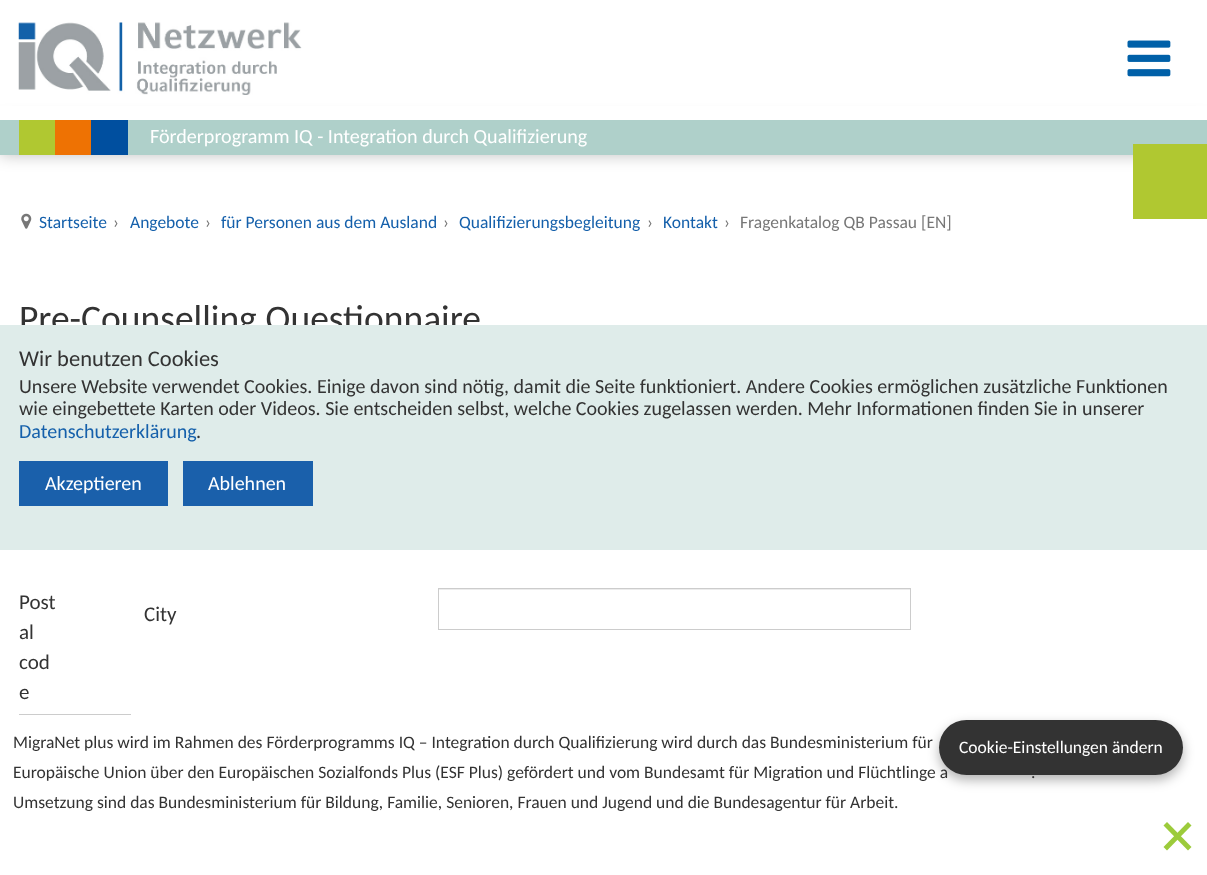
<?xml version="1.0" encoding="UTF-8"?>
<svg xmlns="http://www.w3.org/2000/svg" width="1207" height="875">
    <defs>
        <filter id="blur1" x="-50%" y="-200%" width="200%" height="500%"><feGaussianBlur stdDeviation="8"/></filter>
        <filter id="blur2" x="-50%" y="-200%" width="200%" height="500%"><feGaussianBlur stdDeviation="6"/></filter>
    </defs>
    <rect width="100%" height="100%" fill="#FFFFFF"/>
    <rect x="0" y="120" width="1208" height="35" fill="#000000" fill-opacity="0.25" filter="url(#blur1)"/>
    <rect x="0" y="106" width="1207" height="14" fill="#FFFFFF"/>
    <image x="18" y="22" width="284" height="73" href="img_01.png"/>
    <image x="1127" y="40" width="44" height="37" href="img_02.png"/>
    <rect x="0" y="120" width="1207" height="35" fill="#AFD0CA"/>
    <rect x="91" y="120" width="37" height="35" fill="#004F9F"/>
    <rect x="55" y="120" width="36" height="35" fill="#EE7203"/>
    <rect x="19" y="120" width="36" height="35" fill="#B0C831"/>
    <text x="150" y="143" font-family="Carlito" font-size="20.1" fill="#FFFFFF">Förderprogramm IQ - Integration durch Qualifizierung</text>
    <image x="21" y="213" width="11" height="16" href="img_03.png"/>
    <text x="39" y="228" font-family="Carlito" font-size="17.5" fill="#1560AB">Startseite</text>
    <text x="113" y="228" font-family="Carlito" font-size="17.5" fill="#777777">›</text>
    <text x="130" y="228" font-family="Carlito" font-size="17.5" fill="#1560AB">Angebote</text>
    <text x="205" y="228" font-family="Carlito" font-size="17.5" fill="#777777">›</text>
    <text x="221" y="228" font-family="Carlito" font-size="17.5" fill="#1560AB">für Personen aus dem Ausland</text>
    <text x="443" y="228" font-family="Carlito" font-size="17.5" fill="#777777">›</text>
    <text x="459" y="228" font-family="Carlito" font-size="17.5" fill="#1560AB">Qualifizierungsbegleitung</text>
    <text x="647" y="228" font-family="Carlito" font-size="17.5" fill="#777777">›</text>
    <text x="663" y="228" font-family="Carlito" font-size="17.5" fill="#1560AB">Kontakt</text>
    <text x="724" y="228" font-family="Carlito" font-size="17.5" fill="#777777">›</text>
    <text x="740" y="228" font-family="Carlito" font-size="17.5" fill="#777777">Fragenkatalog QB Passau [EN]</text>
    <text x="19" y="331" font-family="Carlito" font-size="37.5" fill="#333333">Pre-Counselling Questionnaire</text>
    <text font-family="Carlito" font-size="21" fill="#333333">
        <tspan x="19" y="609">Post</tspan>
        <tspan x="19" y="639">al</tspan>
        <tspan x="19" y="669">cod</tspan>
        <tspan x="19" y="699">e</tspan>
    </text>
    <rect x="19.5" y="714.5" width="111" height="41" fill="none" stroke="#CCCCCC"/>
    <text x="144" y="621" font-family="Carlito" font-size="21" fill="#333333">City</text>
    <rect x="439" y="589" width="471" height="1" fill="#ECECEC"/>
    <rect x="438.5" y="588.5" width="472" height="41" fill="none" stroke="#CCCCCC"/>
    <rect x="939" y="725" width="244" height="55" rx="27.5" fill="#000000" fill-opacity="0.3" filter="url(#blur2)"/>
    <rect x="939" y="720" width="244" height="55" rx="27.5" fill="#333333"/>
    <text x="959" y="753" font-family="Carlito" font-size="17.5" fill="#FFFFFF">Cookie-Einstellungen ändern</text>
    <rect x="1133" y="144" width="74" height="75" fill="#B0C831"/>
    <rect x="0" y="325" width="1207" height="225" fill="#DFECEA"/>
    <text x="19" y="366" font-family="Carlito" font-size="22.5" fill="#333333">Wir benutzen Cookies</text>
    <text font-family="Carlito" font-size="20" fill="#333333">
        <tspan x="19" y="393">Unsere Website verwendet Cookies. Einige davon sind nötig, damit die Seite funktioniert. Andere Cookies ermöglichen zusätzliche Funktionen</tspan>
        <tspan x="19" y="415">wie eingebettete Karten oder Videos. Sie entscheiden selbst, welche Cookies zugelassen werden. Mehr Informationen finden Sie in unserer</tspan>
    </text>
    <text x="19" y="438" font-family="Carlito" font-size="20" fill="#1560AB">Datenschutzerklärung</text>
    <text x="196" y="438" font-family="Carlito" font-size="20" fill="#333333">.</text>
    <rect x="19" y="461" width="149" height="45" fill="#1A60AB"/>
    <text x="45" y="490" font-family="Carlito" font-size="20" fill="#FFFFFF">Akzeptieren</text>
    <rect x="183" y="461" width="130" height="45" fill="#1A60AB"/>
    <text x="208" y="490" font-family="Carlito" font-size="20" fill="#FFFFFF">Ablehnen</text>
    <rect x="19" y="715" width="112" height="41" fill="#FFFFFF"/>
    <text font-family="Carlito" font-size="17.5" fill="#333333">
        <tspan x="13" y="748">MigraNet plus wird im Rahmen des Förderprogramms IQ – Integration durch Qualifizierung wird durch das Bundesministerium für</tspan>
        <tspan x="13" y="778">Europäische Union über den Europäischen Sozialfonds Plus (ESF Plus) gefördert und vom Bundesamt für Migration und Flüchtlinge a</tspan>
    </text>
    <text x="1031" y="778" font-family="Carlito" font-size="17.5" fill="#333333">.</text>
    <text x="13" y="808" font-family="Carlito" font-size="17.5" fill="#333333">Umsetzung sind das Bundesministerium für Bildung, Familie, Senioren, Frauen und Jugend und die Bundesagentur für Arbeit.</text>
    <path d="M 1167 822 L 1191.5 847 L 1188 850.5 L 1163.5 825.5 Z" fill="#9CCB3B"/>
    <path d="M 1163.5 847 L 1188 822 L 1191.5 825.5 L 1167 850.5 Z" fill="#9CCB3B"/>
</svg>
